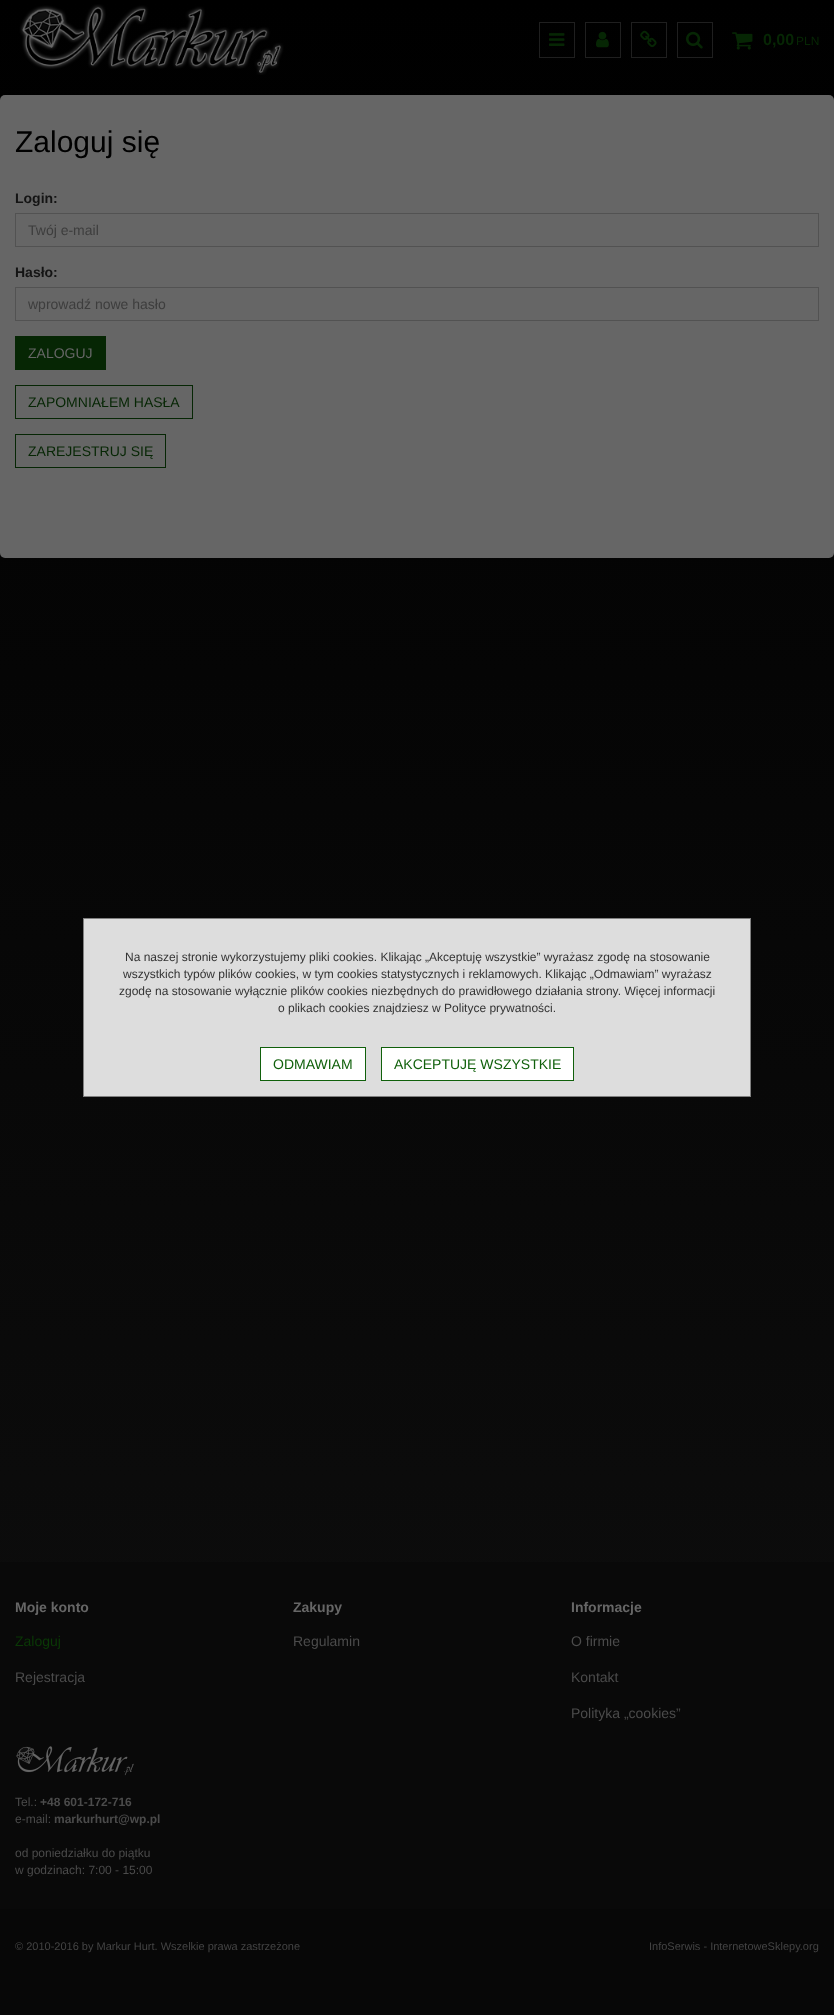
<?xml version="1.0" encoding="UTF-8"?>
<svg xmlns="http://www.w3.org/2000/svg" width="834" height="2015">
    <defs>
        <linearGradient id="g1" gradientUnits="userSpaceOnUse" x1="417" y1="0" x2="417" y2="2015"><stop offset="0" stop-color="#000000"/><stop offset="1" stop-color="#0F0F0F"/></linearGradient>
    </defs>
    <rect width="100%" height="100%" fill="#FFFFFF"/>
    <rect x="0" y="0" width="834" height="1562" fill="url(#g1)"/>
    <image x="19" y="4" width="265" height="71" href="img_01.png"/>
    <rect x="539.5" y="22.5" width="35" height="35" fill="none" stroke="#1F1F1F"/>
    <image x="549" y="33" width="16" height="13" href="img_02.png"/>
    <rect x="585.5" y="22.5" width="35" height="35" fill="none" stroke="#1F1F1F"/>
    <image x="596" y="31" width="13" height="17" href="img_03.png"/>
    <rect x="631.5" y="22.5" width="35" height="35" fill="none" stroke="#1F1F1F"/>
    <image x="640" y="30" width="17" height="18" href="img_04.png"/>
    <rect x="677.5" y="22.5" width="35" height="35" fill="none" stroke="#1F1F1F"/>
    <image x="686" y="31" width="17" height="18" href="img_05.png"/>
    <image x="732" y="32" width="21" height="18" href="img_06.png"/>
    <text x="763" y="45" font-family="Liberation Sans" font-size="16" font-weight="700" fill="#062604">0,00</text>
    <text x="796" y="45" font-family="Liberation Sans" font-size="12" fill="#062604">PLN</text>
    <rect x="0" y="95" width="834" height="463" rx="5" fill="#666666"/>
    <text x="15" y="152" font-family="Liberation Sans" font-size="30" fill="#000000">Zaloguj się</text>
    <text x="15" y="203" font-family="Liberation Sans" font-size="14" font-weight="700" fill="#141414">Login:</text>
    <rect x="15.5" y="213.5" width="803" height="33" fill="none" stroke="#525252"/>
    <text x="28" y="235" font-family="Liberation Sans" font-size="14" fill="#3D3D3D">Twój e-mail</text>
    <text x="15" y="277" font-family="Liberation Sans" font-size="14" font-weight="700" fill="#141414">Hasło:</text>
    <rect x="15.5" y="287.5" width="803" height="33" fill="none" stroke="#525252"/>
    <text x="28" y="309" font-family="Liberation Sans" font-size="14" fill="#3D3D3D">wprowadź nowe hasło</text>
    <rect x="15" y="336" width="91" height="34" fill="#062604"/>
    <text x="28" y="358" font-family="Liberation Sans" font-size="14" fill="#666666">ZALOGUJ</text>
    <rect x="15.5" y="385.5" width="177" height="33" fill="none" stroke="#062604"/>
    <text x="28" y="407" font-family="Liberation Sans" font-size="14" fill="#062604">ZAPOMNIAŁEM HASŁA</text>
    <rect x="15.5" y="434.5" width="150" height="33" fill="none" stroke="#062604"/>
    <text x="28" y="456" font-family="Liberation Sans" font-size="14" fill="#062604">ZAREJESTRUJ SIĘ</text>
    <rect x="0" y="1562" width="834" height="347" fill="#090909"/>
    <text x="15" y="1612" font-family="Liberation Sans" font-size="14" font-weight="700" fill="#666666">Moje konto</text>
    <text x="15" y="1646" font-family="Liberation Sans" font-size="14" fill="#0A3906">Zaloguj</text>
    <text x="15" y="1682" font-family="Liberation Sans" font-size="14" fill="#4B4B4B">Rejestracja</text>
    <text x="293" y="1612" font-family="Liberation Sans" font-size="14" font-weight="700" fill="#666666">Zakupy</text>
    <text x="293" y="1646" font-family="Liberation Sans" font-size="14" fill="#4B4B4B">Regulamin</text>
    <text x="571" y="1612" font-family="Liberation Sans" font-size="14" font-weight="700" fill="#666666">Informacje</text>
    <text x="571" y="1646" font-family="Liberation Sans" font-size="14" fill="#4B4B4B">O firmie</text>
    <text x="571" y="1682" font-family="Liberation Sans" font-size="14" fill="#4B4B4B">Kontakt</text>
    <text x="571" y="1718" font-family="Liberation Sans" font-size="14" fill="#4B4B4B">Polityka „cookies”</text>
    <image x="16" y="1746" width="118" height="30" href="img_07.png"/>
    <text x="15" y="1806" font-family="Liberation Sans" font-size="12" fill="#4B4B4B">Tel.:</text>
    <text x="40" y="1806" font-family="Liberation Sans" font-size="12" font-weight="700" fill="#4B4B4B">+48 601-172-716</text>
    <text x="15" y="1823" font-family="Liberation Sans" font-size="12" fill="#4B4B4B">e-mail:</text>
    <text x="54" y="1823" font-family="Liberation Sans" font-size="12" font-weight="700" fill="#4B4B4B">markurhurt@wp.pl</text>
    <text font-family="Liberation Sans" font-size="12" fill="#4B4B4B">
        <tspan x="15" y="1857">od poniedziałku do piątku</tspan>
        <tspan x="15" y="1874">w godzinach: 7:00 - 15:00</tspan>
    </text>
    <rect x="0" y="1909" width="834" height="106" fill="#070707"/>
    <text x="15" y="1950" font-family="Liberation Sans" font-size="11" fill="#444444">© 2010-2016 by Markur Hurt. Wszelkie prawa zastrzeżone</text>
    <text x="649" y="1950" font-family="Liberation Sans" font-size="11" fill="#444444">InfoSerwis - InternetoweSklepy.org</text>
    <rect x="83.5" y="918.5" width="667" height="178" fill="#DDDDDD" stroke="#808080"/>
    <text x="125" y="961" font-family="Liberation Sans" font-size="12" fill="#333333">Na naszej stronie wykorzystujemy pliki cookies. Klikając „Akceptuję wszystkie” wyrażasz zgodę na stosowanie</text>
    <text x="123" y="978" font-family="Liberation Sans" font-size="12" fill="#333333">wszystkich typów plików cookies, w tym cookies statystycznych i reklamowych. Klikając „Odmawiam” wyrażasz</text>
    <text x="119" y="995" font-family="Liberation Sans" font-size="12" fill="#333333">zgodę na stosowanie wyłącznie plików cookies niezbędnych do prawidłowego działania strony. Więcej informacji</text>
    <text x="278" y="1012" font-family="Liberation Sans" font-size="12" fill="#333333">o plikach cookies znajdziesz w Polityce prywatności.</text>
    <rect x="260.5" y="1047.5" width="105" height="33" fill="#FFFFFF" stroke="#10600B"/>
    <text x="273" y="1069" font-family="Liberation Sans" font-size="14" fill="#10600B">ODMAWIAM</text>
    <rect x="381.5" y="1047.5" width="192" height="33" fill="#FFFFFF" stroke="#10600B"/>
    <text x="394" y="1069" font-family="Liberation Sans" font-size="14" fill="#10600B">AKCEPTUJĘ WSZYSTKIE</text>
</svg>
